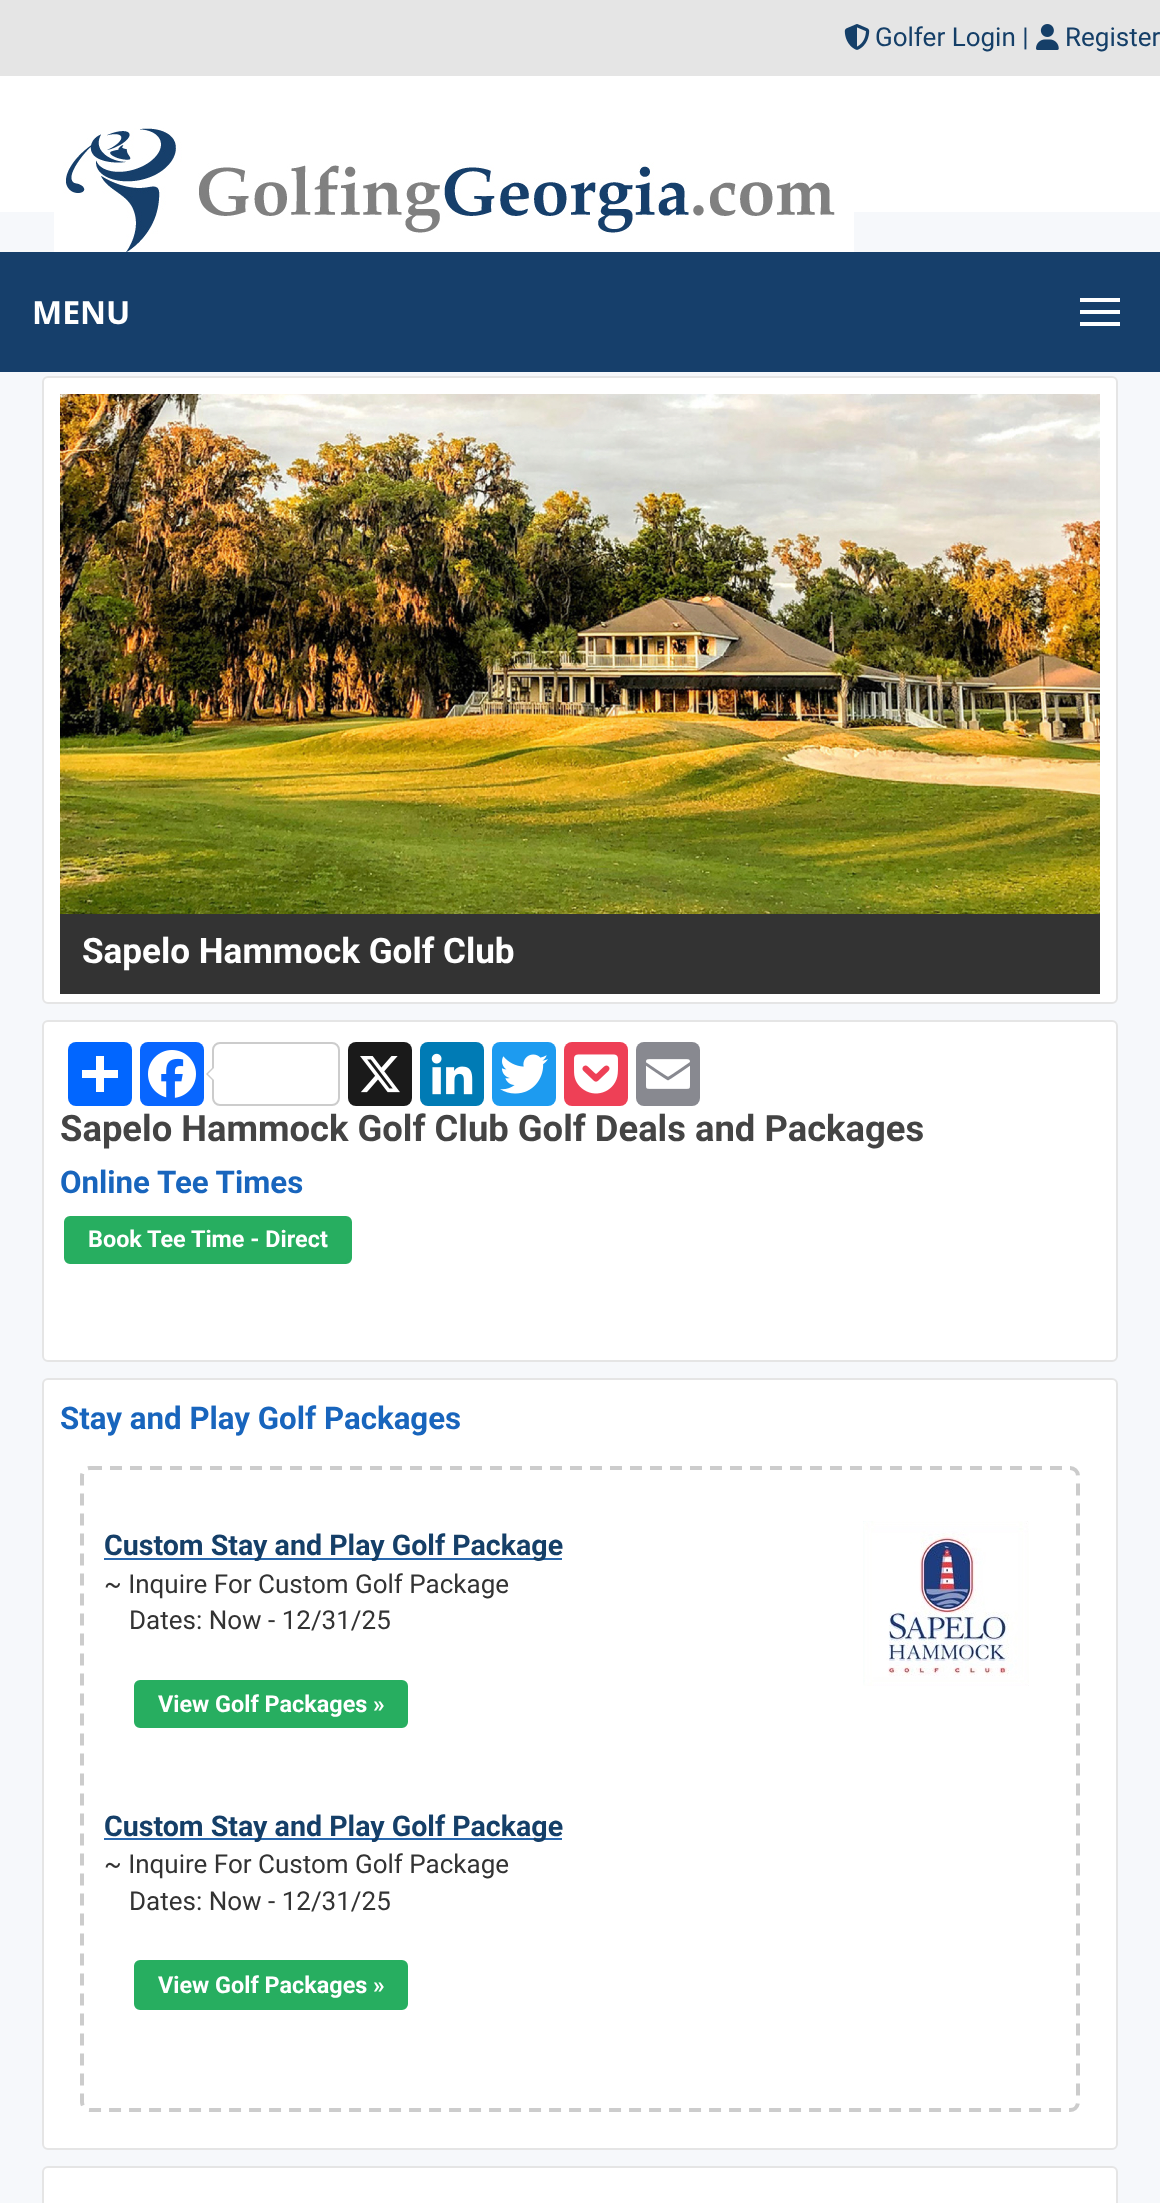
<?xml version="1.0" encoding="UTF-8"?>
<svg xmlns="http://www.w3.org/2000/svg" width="1160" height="2203">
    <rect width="100%" height="100%" fill="#F6F8FB"/>
    <rect x="0" y="0" width="1160" height="76" fill="#E5E5E5"/>
    <image x="844" y="24" width="26" height="26" href="img_01.png"/>
    <text x="875" y="46" font-family="Roboto" font-size="26" fill="#153F68">Golfer Login |</text>
    <image x="1036" y="24" width="23" height="26" href="img_02.png"/>
    <text x="1065" y="46" font-family="Roboto" font-size="26" fill="#153F68">Register</text>
    <rect x="0" y="76" width="1160" height="136" fill="#FFFFFF"/>
    <image x="54" y="128" width="800" height="124" href="img_03.png"/>
    <rect x="0" y="252" width="1160" height="120" fill="#163F6B"/>
    <text x="32" y="324" font-family="Open Sans" font-size="32" font-weight="700" fill="#FFFFFF">MENU</text>
    <rect x="1080" y="322" width="40" height="4" fill="#FFFFFF"/>
    <rect x="1080" y="298" width="40" height="4" fill="#FFFFFF"/>
    <rect x="1080" y="310" width="40" height="4" fill="#FFFFFF"/>
    <rect x="43" y="377" width="1074" height="626" rx="5" fill="#FFFFFF" stroke="#E5E5E5" stroke-width="2"/>
    <image x="60" y="394" width="1040" height="520" href="img_04.png"/>
    <rect x="60" y="914" width="1040" height="80" fill="#333333"/>
    <text x="82" y="963" font-family="Roboto" font-size="35.1" font-weight="700" fill="#FFFFFF">Sapelo Hammock Golf Club</text>
    <rect x="43" y="1021" width="1074" height="340" rx="5" fill="#FFFFFF" stroke="#E5E5E5" stroke-width="2"/>
    <rect x="68" y="1042" width="64" height="64" rx="8" fill="#0166FF"/>
    <rect x="96" y="1056" width="8" height="36" fill="#FFFFFF"/>
    <rect x="82" y="1070" width="36" height="8" fill="#FFFFFF"/>
    <rect x="140" y="1042" width="64" height="64" rx="8" fill="#0866FF"/>
    <image x="148" y="1050" width="48" height="48" href="img_05.png"/>
    <rect x="213" y="1043" width="126" height="62" rx="7" fill="none" stroke="#CCCCCC" stroke-width="2"/>
    <path d="M 214 1066 V 1082 L 206 1074 Z" fill="#CCCCCC"/>
    <path d="M 216 1066 V 1082 L 208 1074 Z" fill="#FFFFFF"/>
    <rect x="348" y="1042" width="64" height="64" rx="8" fill="#1A1A1A"/>
    <image x="360" y="1056" width="40" height="37" href="img_06.png"/>
    <rect x="420" y="1042" width="64" height="64" rx="8" fill="#007BB5"/>
    <image x="431" y="1053" width="42" height="42" href="img_07.png"/>
    <rect x="492" y="1042" width="64" height="64" rx="8" fill="#1D9BF0"/>
    <image x="500" y="1054" width="48" height="40" href="img_08.png"/>
    <rect x="564" y="1042" width="64" height="64" rx="8" fill="#EE4056"/>
    <image x="574" y="1054" width="44" height="40" href="img_09.png"/>
    <rect x="636" y="1042" width="64" height="64" rx="8" fill="#888990"/>
    <image x="646" y="1059" width="44" height="30" href="img_10.png"/>
    <text x="60" y="1141" font-family="Roboto" font-size="36.4" font-weight="700" fill="#444444">Sapelo Hammock Golf Club Golf Deals and Packages</text>
    <text x="60" y="1193" font-family="Roboto" font-size="31.25" font-weight="700" fill="#1865BD">Online Tee Times</text>
    <rect x="66" y="1218" width="284" height="44" rx="4" fill="#27AE60" stroke="#27AE60" stroke-width="4"/>
    <text x="88" y="1247" font-family="Roboto" font-size="23.4" font-weight="700" fill="#FFFFFF">Book Tee Time - Direct</text>
    <rect x="43" y="1379" width="1074" height="770" rx="5" fill="#FFFFFF" stroke="#E5E5E5" stroke-width="2"/>
    <text x="60" y="1429" font-family="Roboto" font-size="31.25" font-weight="700" fill="#1865BD">Stay and Play Golf Packages</text>
    <path d="M 90 1468 H 1070 C 1074.5 1468 1078 1471.5 1078 1476 V 2102 C 1078 2106.5 1074.5 2110 1070 2110 H 90 C 85.5 2110 82 2106.5 82 2102 V 1476 C 82 1471.5 85.5 1468 90 1468 Z" fill="none" stroke="#CCCCCC" stroke-width="4" stroke-dasharray="12 8"/>
    <rect x="104" y="1558" width="458" height="2" fill="#2969B0"/>
    <text x="104" y="1555" font-family="Roboto" font-size="28.6" font-weight="700" fill="#153F68">Custom Stay and Play Golf Package</text>
    <image x="863" y="1521" width="166" height="165" href="img_11.png"/>
    <text x="104" y="1593" font-family="Roboto" font-size="26" fill="#333333">~ Inquire For Custom Golf Package</text>
    <text x="129" y="1629" font-family="Roboto" font-size="26" fill="#333333">Dates: Now - 12/31/25</text>
    <rect x="136" y="1682" width="270" height="44" rx="4" fill="#27AE60" stroke="#27AE60" stroke-width="4"/>
    <text x="158" y="1712" font-family="Roboto" font-size="23.4" font-weight="700" fill="#FFFFFF">View Golf Packages »</text>
    <rect x="104" y="1838" width="458" height="2" fill="#2969B0"/>
    <text x="104" y="1836" font-family="Roboto" font-size="28.6" font-weight="700" fill="#153F68">Custom Stay and Play Golf Package</text>
    <text x="104" y="1873" font-family="Roboto" font-size="26" fill="#333333">~ Inquire For Custom Golf Package</text>
    <text x="129" y="1910" font-family="Roboto" font-size="26" fill="#333333">Dates: Now - 12/31/25</text>
    <rect x="136" y="1962" width="270" height="46" rx="4" fill="#27AE60" stroke="#27AE60" stroke-width="4"/>
    <text x="158" y="1993" font-family="Roboto" font-size="23.4" font-weight="700" fill="#FFFFFF">View Golf Packages »</text>
    <rect x="43" y="2167" width="1074" height="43" rx="5" fill="#FFFFFF" stroke="#E5E5E5" stroke-width="2"/>
</svg>
